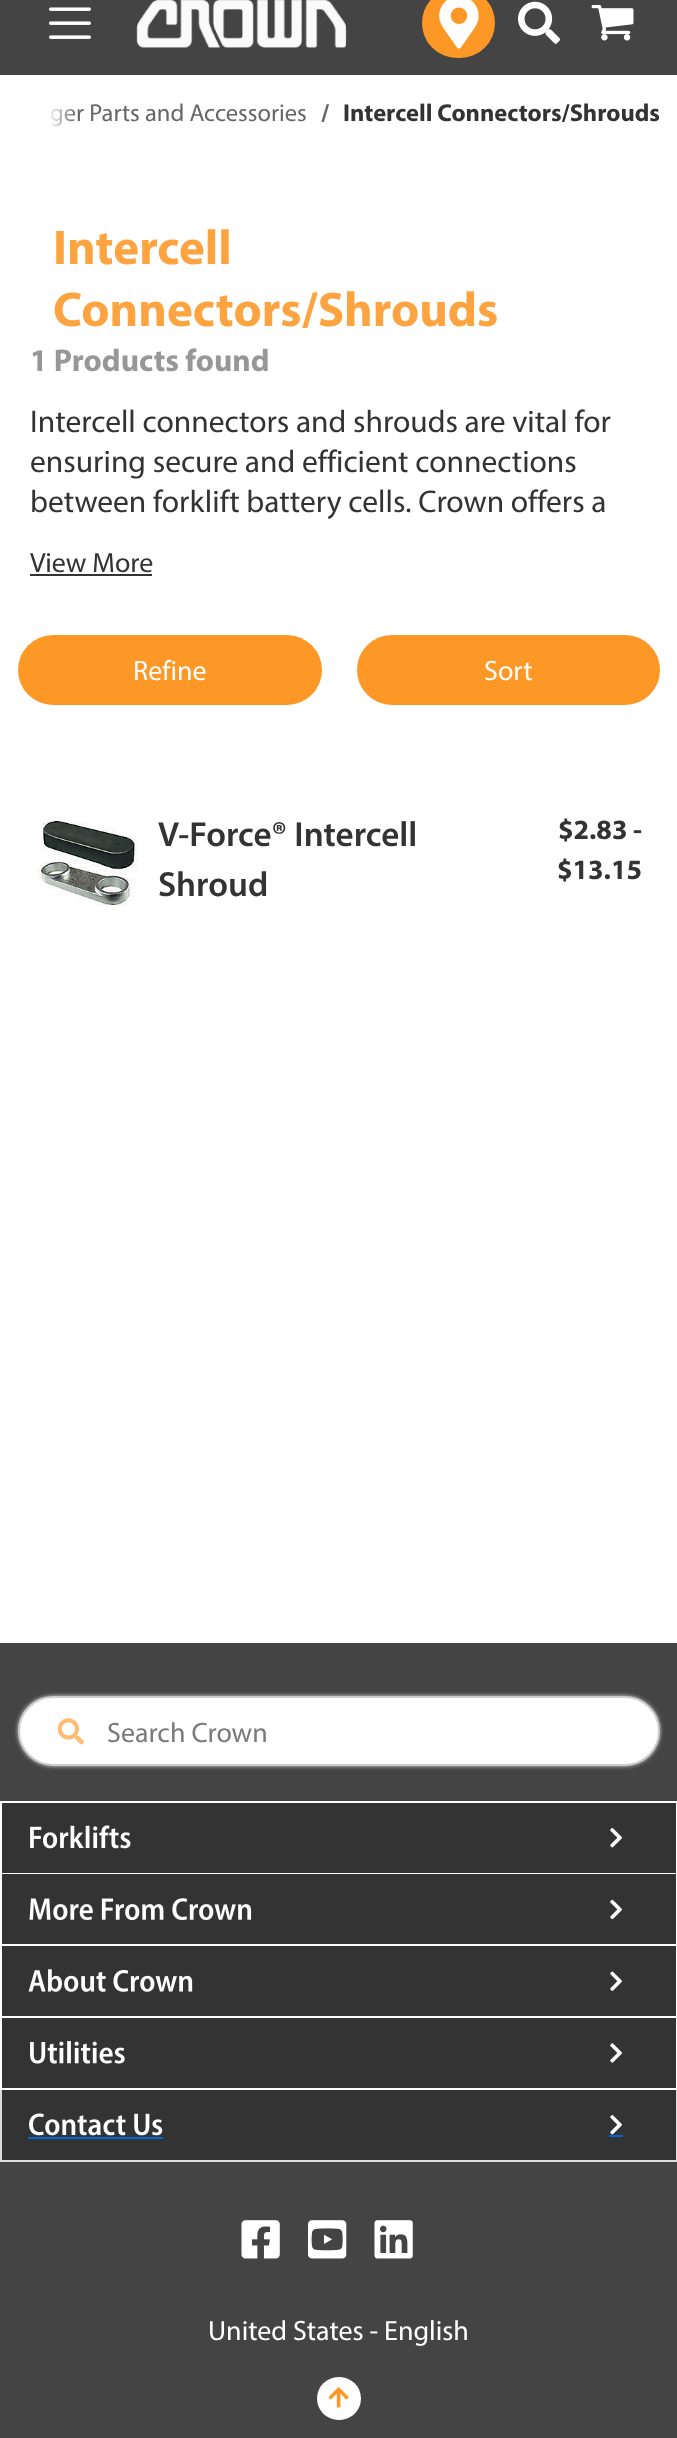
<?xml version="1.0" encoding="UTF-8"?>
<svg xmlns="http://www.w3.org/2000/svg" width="677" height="2438">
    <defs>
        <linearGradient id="g1" gradientUnits="userSpaceOnUse" x1="14" y1="110" x2="77" y2="110"><stop offset="0.53" stop-color="#FFFFFF"/><stop offset="1" stop-color="#FFFFFF" stop-opacity="0"/></linearGradient>
        <filter id="blur1" x="-50%" y="-200%" width="200%" height="500%"><feGaussianBlur stdDeviation="2"/></filter>
    </defs>
    <rect width="100%" height="100%" fill="#FFFFFF"/>
    <rect x="0" y="0" width="677" height="75" fill="#444444"/>
    <image x="49" y="7" width="42" height="32" href="img_01.png"/>
    <image x="136" y="0" width="211" height="48" href="img_02.png"/>
    <rect x="422" y="-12" width="73" height="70" rx="35" fill="#FD9827"/>
    <image x="439" y="0" width="40" height="49" href="img_03.png"/>
    <image x="518" y="1" width="42" height="43" href="img_04.png"/>
    <image x="591" y="5" width="43" height="36" href="img_05.png"/>
    <text x="50" y="121" font-family="Myriad" font-size="24.5" fill="#666666">ger Parts and Accessories</text>
    <text x="321" y="121" font-family="Myriad" font-size="24.5" font-weight="700" fill="#666666">/</text>
    <text x="343" y="121" font-family="Myriad" font-size="24.5" font-weight="700" fill="#333333">Intercell Connectors/Shrouds</text>
    <rect x="50" y="108" width="25" height="19" fill="url(#g1)"/>
    <text font-family="Myriad" font-size="49" font-weight="700" fill="#FDA440">
        <tspan x="53" y="264">Intercell</tspan>
        <tspan x="53" y="326">Connectors/Shrouds</tspan>
    </text>
    <text x="30" y="371" font-family="Myriad" font-size="31.5" font-weight="700" fill="#979797">1 Products found</text>
    <text font-family="Myriad" font-size="31.5" fill="#333333">
        <tspan x="30" y="432">Intercell connectors and shrouds are vital for</tspan>
        <tspan x="30" y="472">ensuring secure and efficient connections</tspan>
        <tspan x="30" y="512">between forklift battery cells. Crown offers a</tspan>
    </text>
    <text x="30" y="572" font-family="Myriad" font-size="28" fill="#333333">View More</text>
    <rect x="30" y="574" width="122" height="2" fill="#333333"/>
    <rect x="18" y="635" width="304" height="70" rx="35" fill="#FD9827"/>
    <text x="133" y="680" font-family="Myriad" font-size="28" fill="#FFFFFF">Refine</text>
    <rect x="359.5" y="637.5" width="298" height="65" rx="32.5" fill="#FD9827" stroke="#FD9827" stroke-width="5"/>
    <text x="484" y="680" font-family="Myriad" font-size="28" fill="#FFFFFF">Sort</text>
    <image x="37" y="816" width="101" height="90" href="img_06.png"/>
    <text font-family="Myriad" font-size="35" font-weight="600" fill="#333333">
        <tspan x="158" y="846">V-Force® Intercell</tspan>
        <tspan x="158" y="896">Shroud</tspan>
    </text>
    <text x="558" y="839" font-family="Myriad" font-size="28" font-weight="700" fill="#333333">$2.83 -</text>
    <text x="557" y="879" font-family="Myriad" font-size="28" font-weight="700" fill="#333333">$13.15</text>
    <rect x="0" y="1643" width="677" height="795" fill="#444444"/>
    <rect x="18" y="1696" width="642" height="70" rx="35" fill="#DADADA" filter="url(#blur1)"/>
    <rect x="19" y="1697" width="640" height="68" rx="34" fill="#FFFFFF" stroke="#CCCCCC" stroke-width="2"/>
    <image x="57" y="1718" width="27" height="27" href="img_07.png"/>
    <text x="107" y="1742" font-family="Myriad" font-size="28" fill="#7A7A7A">Search Crown</text>
    <rect x="0" y="1801" width="677" height="289" fill="#FFFFFF"/>
    <rect x="2" y="1803" width="674" height="70" fill="#333333"/>
    <image x="30" y="1825" width="101" height="24" href="img_08.png"/>
    <image x="610" y="1828" width="12" height="20" href="img_09.png"/>
    <rect x="2" y="1874" width="674" height="70" fill="#333333"/>
    <image x="29" y="1898" width="223" height="23" href="img_10.png"/>
    <image x="610" y="1899" width="12" height="21" href="img_11.png"/>
    <rect x="2" y="1946" width="674" height="70" fill="#333333"/>
    <image x="28" y="1969" width="165" height="23" href="img_12.png"/>
    <image x="610" y="1971" width="12" height="20" href="img_13.png"/>
    <rect x="2" y="2018" width="674" height="70" fill="#333333"/>
    <image x="30" y="2041" width="95" height="23" href="img_14.png"/>
    <image x="610" y="2043" width="12" height="20" href="img_15.png"/>
    <rect x="676" y="2090" width="1" height="71" fill="#DDDDDD"/>
    <rect x="0" y="2160" width="677" height="2" fill="#DDDDDD"/>
    <rect x="0" y="2090" width="2" height="71" fill="#DDDDDD"/>
    <rect x="2" y="2090" width="674" height="70" fill="#333333"/>
    <image x="29" y="2113" width="134" height="23" href="img_16.png"/>
    <rect x="28" y="2137" width="135" height="2" fill="#0068D6"/>
    <image x="610" y="2115" width="12" height="20" href="img_09.png"/>
    <rect x="609" y="2135" width="14" height="2" fill="#0068D6"/>
    <image x="241" y="2220" width="39" height="39" href="img_17.png"/>
    <image x="308" y="2220" width="39" height="39" href="img_18.png"/>
    <image x="374" y="2220" width="39" height="39" href="img_19.png"/>
    <text x="208" y="2340" font-family="Myriad" font-size="28" fill="#FFFFFF">United States - English</text>
    <rect x="317" y="2377" width="44" height="43" rx="21.5" fill="#FFFFFF"/>
    <image x="328" y="2387" width="21" height="21" href="img_20.png"/>
</svg>
